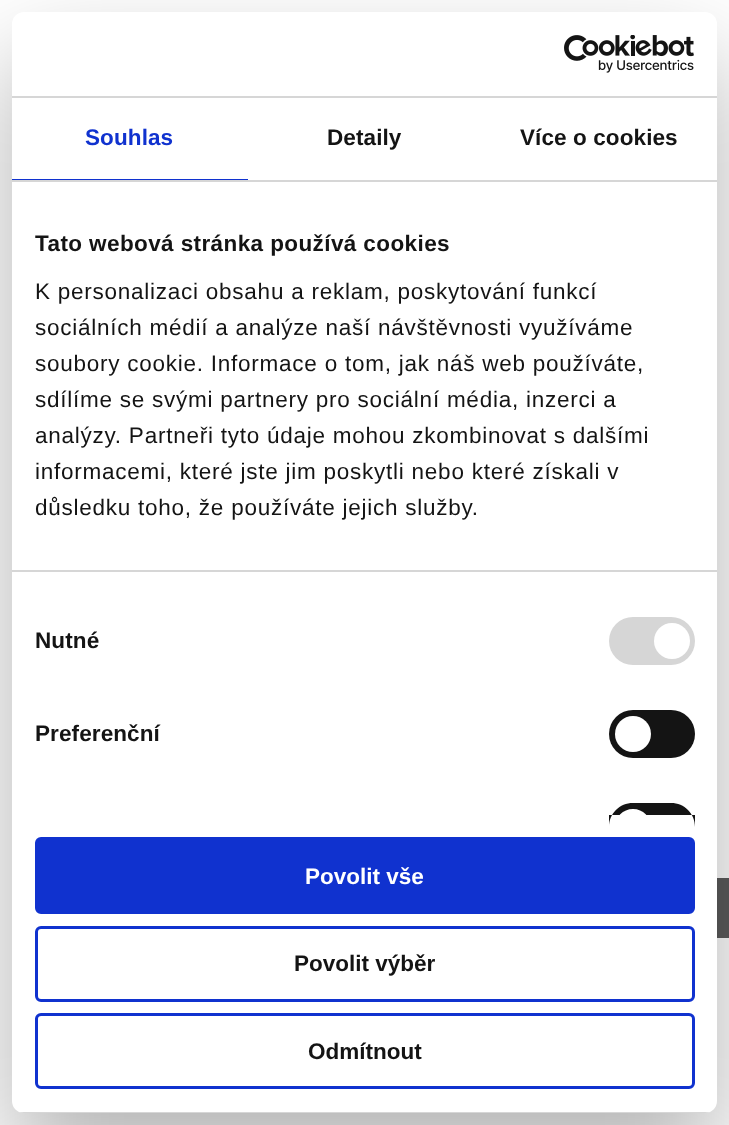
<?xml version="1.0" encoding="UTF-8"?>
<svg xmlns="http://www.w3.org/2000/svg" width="729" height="1125">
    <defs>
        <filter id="blur1" x="-50%" y="-200%" width="200%" height="500%"><feGaussianBlur stdDeviation="51"/></filter>
        <clipPath id="clip1"><rect x="12" y="12" width="705" height="1101" rx="12"/></clipPath>
    </defs>
    <rect width="100%" height="100%" fill="#FFFFFF"/>
    <rect x="717" y="878" width="12" height="60" fill="#999999"/>
    <rect x="717" y="878" width="12" height="60" fill="#000000" fill-opacity="0.4"/>
    <rect x="12" y="60" width="705" height="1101" rx="12" fill="#000000" fill-opacity="0.3" filter="url(#blur1)"/>
    <rect x="12" y="12" width="705" height="1101" rx="12" fill="#FFFFFF"/>
    <rect x="12" y="96" width="705" height="2" fill="#D6D6D6"/>
    <image x="564" y="35" width="130" height="38" href="img_01.png"/>
    <rect x="12" y="180" width="705" height="2" fill="#D6D6D6"/>
    <rect x="12" y="179" width="236" height="1" fill="#1032CF"/>
    <text x="85" y="145" font-family="Liberation Sans" font-size="22.5" font-weight="700" letter-spacing="0.1" fill="#1032CF">Souhlas</text>
    <text x="327" y="145" font-family="Liberation Sans" font-size="22.5" font-weight="700" letter-spacing="0.1" fill="#141414">Detaily</text>
    <text x="520" y="145" font-family="Liberation Sans" font-size="22.5" font-weight="700" letter-spacing="0.1" fill="#141414">Více o cookies</text>
    <rect x="12" y="570" width="705" height="2" fill="#D6D6D6"/>
    <text x="35" y="251" font-family="Liberation Sans" font-size="22.5" font-weight="700" letter-spacing="0.4" fill="#141414">Tato webová stránka používá cookies</text>
    <text font-family="Liberation Sans" font-size="22.5" letter-spacing="0.75" fill="#141414">
        <tspan x="35" y="299">K personalizaci obsahu a reklam, poskytování funkcí</tspan>
        <tspan x="35" y="335">sociálních médií a analýze naší návštěvnosti využíváme</tspan>
        <tspan x="35" y="371">soubory cookie. Informace o tom, jak náš web používáte,</tspan>
        <tspan x="35" y="407">sdílíme se svými partnery pro sociální média, inzerci a</tspan>
        <tspan x="35" y="443">analýzy. Partneři tyto údaje mohou zkombinovat s dalšími</tspan>
        <tspan x="35" y="479">informacemi, které jste jim poskytli nebo které získali v</tspan>
        <tspan x="35" y="515">důsledku toho, že používáte jejich služby.</tspan>
    </text>
    <text x="35" y="648" font-family="Liberation Sans" font-size="22.5" font-weight="700" letter-spacing="0.1" fill="#141414">Nutné</text>
    <rect x="609" y="617" width="86" height="48" rx="24" fill="#D6D6D6"/>
    <circle cx="672" cy="641" r="18" fill="#FFFFFF"/>
    <text x="35" y="741" font-family="Liberation Sans" font-size="22.5" font-weight="700" letter-spacing="0.1" fill="#141414">Preferenční</text>
    <rect x="609" y="710" width="86" height="48" rx="24" fill="#141414"/>
    <circle cx="633" cy="734" r="18" fill="#FFFFFF"/>
    <path d="M 633 803 H 671 C 684.5 803 695 813.5 695 827 V 815 H 609 V 827 C 609 813.5 619.5 803 633 803 Z" fill="#141414"/>
    <path d="M 633 809 C 643 809 651 817 651 827 V 815 H 615 V 827 C 615 817 623 809 633 809 Z" fill="#FFFFFF"/>
    <g clip-path="url(#clip1)">
        <rect x="12" y="1112" width="705" height="1" fill="#D6D6D6"/>
    </g>
    <rect x="36.5" y="838.5" width="657" height="74" rx="4.5" fill="#1032CF" stroke="#1032CF" stroke-width="3"/>
    <text x="305" y="884" font-family="Liberation Sans" font-size="22.5" font-weight="700" fill="#FFFFFF">Povolit vše</text>
    <rect x="36.5" y="927.5" width="657" height="73" rx="4.5" fill="none" stroke="#1032CF" stroke-width="3"/>
    <text x="294" y="971" font-family="Liberation Sans" font-size="22.5" font-weight="700" fill="#141414">Povolit výběr</text>
    <rect x="36.5" y="1014.5" width="657" height="73" rx="4.5" fill="none" stroke="#1032CF" stroke-width="3"/>
    <text x="308" y="1059" font-family="Liberation Sans" font-size="22.5" font-weight="700" fill="#141414">Odmítnout</text>
</svg>
